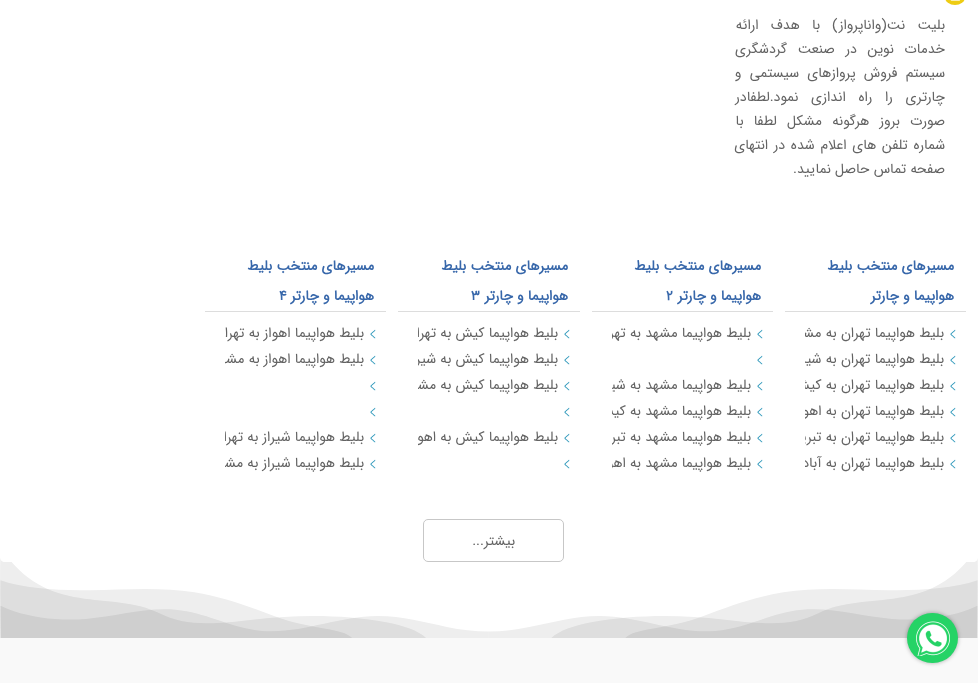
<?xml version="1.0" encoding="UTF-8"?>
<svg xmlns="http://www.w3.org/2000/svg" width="978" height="683">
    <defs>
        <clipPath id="clip1"><rect x="805" y="320" width="139" height="26"/></clipPath>
        <clipPath id="clip2"><rect x="805" y="346" width="139" height="26"/></clipPath>
        <clipPath id="clip3"><rect x="805" y="372" width="139" height="26"/></clipPath>
        <clipPath id="clip4"><rect x="805" y="398" width="139" height="26"/></clipPath>
        <clipPath id="clip5"><rect x="805" y="424" width="139" height="26"/></clipPath>
        <clipPath id="clip6"><rect x="805" y="450" width="139" height="26"/></clipPath>
        <clipPath id="clip7"><rect x="612" y="320" width="139" height="26"/></clipPath>
        <clipPath id="clip8"><rect x="612" y="372" width="139" height="26"/></clipPath>
        <clipPath id="clip9"><rect x="612" y="398" width="139" height="26"/></clipPath>
        <clipPath id="clip10"><rect x="612" y="424" width="139" height="26"/></clipPath>
        <clipPath id="clip11"><rect x="612" y="450" width="139" height="26"/></clipPath>
        <clipPath id="clip12"><rect x="418" y="320" width="140" height="26"/></clipPath>
        <clipPath id="clip13"><rect x="418" y="346" width="140" height="26"/></clipPath>
        <clipPath id="clip14"><rect x="418" y="372" width="140" height="26"/></clipPath>
        <clipPath id="clip15"><rect x="418" y="424" width="140" height="26"/></clipPath>
        <clipPath id="clip16"><rect x="225" y="320" width="139" height="26"/></clipPath>
        <clipPath id="clip17"><rect x="225" y="346" width="139" height="26"/></clipPath>
        <clipPath id="clip18"><rect x="225" y="424" width="139" height="26"/></clipPath>
        <clipPath id="clip19"><rect x="225" y="450" width="139" height="26"/></clipPath>
        <filter id="blur1" x="-50%" y="-200%" width="200%" height="500%"><feGaussianBlur stdDeviation="2"/></filter>
    </defs>
    <rect width="100%" height="100%" fill="#FFFFFF"/>
    <rect x="945" y="-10" width="20" height="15" rx="10" fill="#EECC13"/>
    <image x="950" y="0" width="10" height="1" href="img_01.png"/>
    <text font-family="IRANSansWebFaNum" font-size="14" direction="rtl" fill="#636363">
        <tspan x="945" y="29" word-spacing="8">بلیت نت(واناپرواز) با هدف ارائه</tspan>
        <tspan x="945" y="53" word-spacing="6.5">خدمات نوین در صنعت گردشگری</tspan>
        <tspan x="945" y="77" word-spacing="4">سیستم فروش پروازهای سیستمی و</tspan>
        <tspan x="945" y="101" word-spacing="8.5">چارتری را راه اندازی نمود.لطفادر</tspan>
        <tspan x="945" y="125" word-spacing="6">صورت بروز هرگونه مشکل لطفا با</tspan>
        <tspan x="945" y="149" word-spacing="1.5">شماره تلفن های اعلام شده در انتهای</tspan>
        <tspan x="945" y="173">صفحه تماس حاصل نمایید.</tspan>
    </text>
    <image x="0" y="557" width="978" height="81" href="img_03.png"/>
    <path d="M 0 243 H 978 V 557 C 978 560 976 562 973 562 H 5 C 2 562 0 560 0 557 Z" fill="#FFFFFF"/>
    <rect x="785" y="311" width="181" height="1" fill="#DDDDDD"/>
    <text x="954" y="270" font-family="IRANSansWebFaNum" font-size="14" font-weight="700" direction="rtl" fill="#3767AA">مسیرهای منتخب بلیط</text>
    <text x="954" y="300" font-family="IRANSansWebFaNum" font-size="14" font-weight="700" direction="rtl" fill="#3767AA">هواپیما و چارتر</text>
    <image x="950" y="329" width="6" height="10" href="img_02.png"/>
    <g clip-path="url(#clip1)">
        <text x="944" y="337" font-family="IRANSansWebFaNum" font-size="14" direction="rtl" fill="#636363">بلیط هواپیما تهران به مشهد</text>
    </g>
    <image x="950" y="355" width="6" height="10" href="img_02.png"/>
    <g clip-path="url(#clip2)">
        <text x="944" y="363" font-family="IRANSansWebFaNum" font-size="14" direction="rtl" fill="#636363">بلیط هواپیما تهران به شیراز</text>
    </g>
    <image x="950" y="381" width="6" height="10" href="img_02.png"/>
    <g clip-path="url(#clip3)">
        <text x="944" y="389" font-family="IRANSansWebFaNum" font-size="14" direction="rtl" fill="#636363">بلیط هواپیما تهران به کیش</text>
    </g>
    <image x="950" y="407" width="6" height="10" href="img_02.png"/>
    <g clip-path="url(#clip4)">
        <text x="944" y="415" font-family="IRANSansWebFaNum" font-size="14" direction="rtl" fill="#636363">بلیط هواپیما تهران به اهواز</text>
    </g>
    <image x="950" y="433" width="6" height="10" href="img_02.png"/>
    <g clip-path="url(#clip5)">
        <text x="944" y="441" font-family="IRANSansWebFaNum" font-size="14" direction="rtl" fill="#636363">بلیط هواپیما تهران به تبریز</text>
    </g>
    <image x="950" y="459" width="6" height="10" href="img_02.png"/>
    <g clip-path="url(#clip6)">
        <text x="944" y="467" font-family="IRANSansWebFaNum" font-size="14" direction="rtl" fill="#636363">بلیط هواپیما تهران به آبادان</text>
    </g>
    <rect x="592" y="311" width="181" height="1" fill="#DDDDDD"/>
    <text x="761" y="270" font-family="IRANSansWebFaNum" font-size="14" font-weight="700" direction="rtl" fill="#3767AA">مسیرهای منتخب بلیط</text>
    <text x="761" y="300" font-family="IRANSansWebFaNum" font-size="14" font-weight="700" direction="rtl" fill="#3767AA">هواپیما و چارتر</text>
    <text x="666" y="300" font-family="IRANSansWebFaNum" font-size="14" font-weight="700" fill="#3767AA">2</text>
    <image x="757" y="329" width="6" height="10" href="img_02.png"/>
    <g clip-path="url(#clip7)">
        <text x="751" y="337" font-family="IRANSansWebFaNum" font-size="14" direction="rtl" fill="#636363">بلیط هواپیما مشهد به تهران</text>
    </g>
    <image x="757" y="355" width="6" height="10" href="img_02.png"/>
    <image x="757" y="381" width="6" height="10" href="img_02.png"/>
    <g clip-path="url(#clip8)">
        <text x="751" y="389" font-family="IRANSansWebFaNum" font-size="14" direction="rtl" fill="#636363">بلیط هواپیما مشهد به شیراز</text>
    </g>
    <image x="757" y="407" width="6" height="10" href="img_02.png"/>
    <g clip-path="url(#clip9)">
        <text x="751" y="415" font-family="IRANSansWebFaNum" font-size="14" direction="rtl" fill="#636363">بلیط هواپیما مشهد به کیش</text>
    </g>
    <image x="757" y="433" width="6" height="10" href="img_02.png"/>
    <g clip-path="url(#clip10)">
        <text x="751" y="441" font-family="IRANSansWebFaNum" font-size="14" direction="rtl" fill="#636363">بلیط هواپیما مشهد به تبریز</text>
    </g>
    <image x="757" y="459" width="6" height="10" href="img_02.png"/>
    <g clip-path="url(#clip11)">
        <text x="751" y="467" font-family="IRANSansWebFaNum" font-size="14" direction="rtl" fill="#636363">بلیط هواپیما مشهد به اهواز</text>
    </g>
    <rect x="398" y="311" width="182" height="1" fill="#DDDDDD"/>
    <text x="568" y="270" font-family="IRANSansWebFaNum" font-size="14" font-weight="700" direction="rtl" fill="#3767AA">مسیرهای منتخب بلیط</text>
    <text x="568" y="300" font-family="IRANSansWebFaNum" font-size="14" font-weight="700" direction="rtl" fill="#3767AA">هواپیما و چارتر</text>
    <text x="471" y="300" font-family="IRANSansWebFaNum" font-size="14" font-weight="700" fill="#3767AA">3</text>
    <image x="564" y="329" width="6" height="10" href="img_02.png"/>
    <g clip-path="url(#clip12)">
        <text x="558" y="337" font-family="IRANSansWebFaNum" font-size="14" direction="rtl" fill="#636363">بلیط هواپیما کیش به تهران</text>
    </g>
    <image x="564" y="355" width="6" height="10" href="img_02.png"/>
    <g clip-path="url(#clip13)">
        <text x="558" y="363" font-family="IRANSansWebFaNum" font-size="14" direction="rtl" fill="#636363">بلیط هواپیما کیش به شیراز</text>
    </g>
    <image x="564" y="381" width="6" height="10" href="img_02.png"/>
    <g clip-path="url(#clip14)">
        <text x="558" y="389" font-family="IRANSansWebFaNum" font-size="14" direction="rtl" fill="#636363">بلیط هواپیما کیش به مشهد</text>
    </g>
    <image x="564" y="407" width="6" height="10" href="img_02.png"/>
    <image x="564" y="433" width="6" height="10" href="img_02.png"/>
    <g clip-path="url(#clip15)">
        <text x="558" y="441" font-family="IRANSansWebFaNum" font-size="14" direction="rtl" fill="#636363">بلیط هواپیما کیش به اهواز</text>
    </g>
    <image x="564" y="459" width="6" height="10" href="img_02.png"/>
    <rect x="205" y="311" width="181" height="1" fill="#DDDDDD"/>
    <text x="374" y="270" font-family="IRANSansWebFaNum" font-size="14" font-weight="700" direction="rtl" fill="#3767AA">مسیرهای منتخب بلیط</text>
    <text x="374" y="300" font-family="IRANSansWebFaNum" font-size="14" font-weight="700" direction="rtl" fill="#3767AA">هواپیما و چارتر</text>
    <text x="279" y="300" font-family="IRANSansWebFaNum" font-size="14" font-weight="700" fill="#3767AA">4</text>
    <image x="370" y="329" width="6" height="10" href="img_02.png"/>
    <g clip-path="url(#clip16)">
        <text x="364" y="337" font-family="IRANSansWebFaNum" font-size="14" direction="rtl" fill="#636363">بلیط هواپیما اهواز به تهران</text>
    </g>
    <image x="370" y="355" width="6" height="10" href="img_02.png"/>
    <g clip-path="url(#clip17)">
        <text x="364" y="363" font-family="IRANSansWebFaNum" font-size="14" direction="rtl" fill="#636363">بلیط هواپیما اهواز به مشهد</text>
    </g>
    <image x="370" y="381" width="6" height="10" href="img_02.png"/>
    <image x="370" y="407" width="6" height="10" href="img_02.png"/>
    <image x="370" y="433" width="6" height="10" href="img_02.png"/>
    <g clip-path="url(#clip18)">
        <text x="364" y="441" font-family="IRANSansWebFaNum" font-size="14" direction="rtl" fill="#636363">بلیط هواپیما شیراز به تهران</text>
    </g>
    <image x="370" y="459" width="6" height="10" href="img_02.png"/>
    <g clip-path="url(#clip19)">
        <text x="364" y="467" font-family="IRANSansWebFaNum" font-size="14" direction="rtl" fill="#636363">بلیط هواپیما شیراز به مشهد</text>
    </g>
    <rect x="423.5" y="519.5" width="140" height="42" rx="4.5" fill="none" stroke="#C7C7C7"/>
    <text x="515" y="545" font-family="IRANSansWebFaNum" font-size="14" direction="rtl" fill="#636363">بیشتر...</text>
    <rect x="0" y="638" width="978" height="45" fill="#F9F9F9"/>
    <rect x="907" y="613" width="51" height="50" rx="25" fill="#000000" fill-opacity="0.32" filter="url(#blur1)"/>
    <rect x="907" y="613" width="51" height="50" rx="25" fill="#25D366"/>
    <image x="916" y="621" width="34" height="35" href="img_04.png"/>
</svg>
